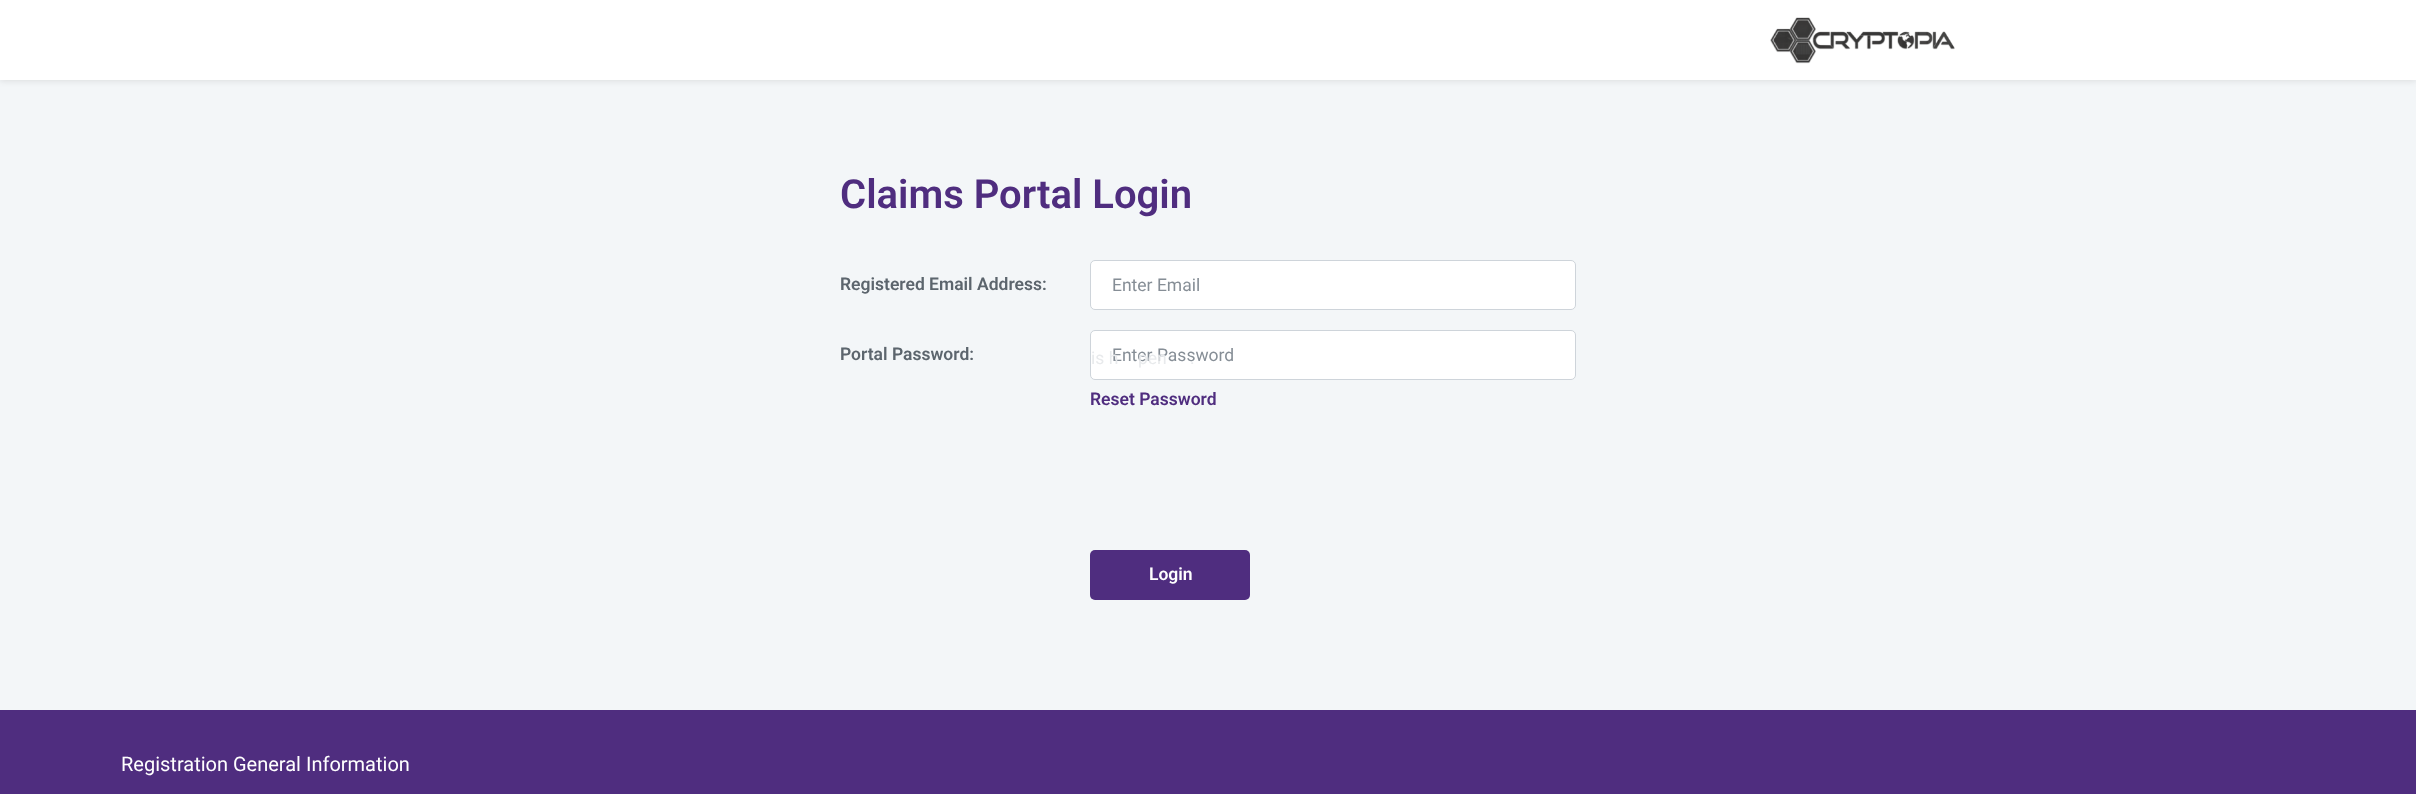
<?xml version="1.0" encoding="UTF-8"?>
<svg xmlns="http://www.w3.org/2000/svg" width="2416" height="794">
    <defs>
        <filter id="blur1" x="-50%" y="-200%" width="200%" height="500%"><feGaussianBlur stdDeviation="3"/></filter>
    </defs>
    <rect width="100%" height="100%" fill="#F3F6F8"/>
    <rect x="0" y="1" width="2416" height="80" fill="#15181A" fill-opacity="0.1" filter="url(#blur1)"/>
    <rect x="0" y="0" width="2416" height="80" fill="#FFFFFF"/>
    <image x="1770" y="17" width="185" height="47" href="img_01.png"/>
    <text x="840" y="208" font-family="Roboto" font-size="40" font-weight="600" fill="#4F2D7F">Claims Portal Login</text>
    <text x="840" y="290" font-family="Roboto" font-size="17.5" font-weight="600" fill="#5C656D">Registered Email Address:</text>
    <rect x="1090.5" y="260.5" width="485" height="49" rx="4.5" fill="#FFFFFF" stroke="#CED4DA"/>
    <text x="1112" y="291" font-family="Roboto" font-size="17.5" fill="#868E96">Enter Email</text>
    <text x="840" y="360" font-family="Roboto" font-size="17.5" font-weight="600" fill="#5C656D">Portal Password:</text>
    <rect x="1090.5" y="330.5" width="485" height="49" rx="4.5" fill="#FFFFFF" stroke="#CED4DA"/>
    <text x="1112" y="361" font-family="Roboto" font-size="17.5" fill="#868E96">Enter Password</text>
    <text x="1090" y="405" font-family="Roboto" font-size="17.5" font-weight="600" fill="#4F2D7F">Reset Password</text>
    <rect x="1090" y="550" width="160" height="50" rx="5" fill="#4F2D7F"/>
    <text x="1149" y="580" font-family="Roboto" font-size="17.5" font-weight="600" fill="#FFFFFF">Login</text>
    <rect x="0" y="710" width="2416" height="84" fill="#4F2D7F"/>
    <text x="121" y="771" font-family="Roboto" font-size="20" fill="#FFFFFF">Registration General Information</text>
    <text x="1091" y="364" font-family="Roboto" font-size="17.5" fill="#E8EAEC">is h</text>
    <text x="1138" y="364" font-family="Roboto" font-size="17.5" fill="#E8EAEC">pen</text>
    <text x="1190" y="364" font-family="Roboto" font-size="17.5" fill="#E8EAEC">.</text>
</svg>
